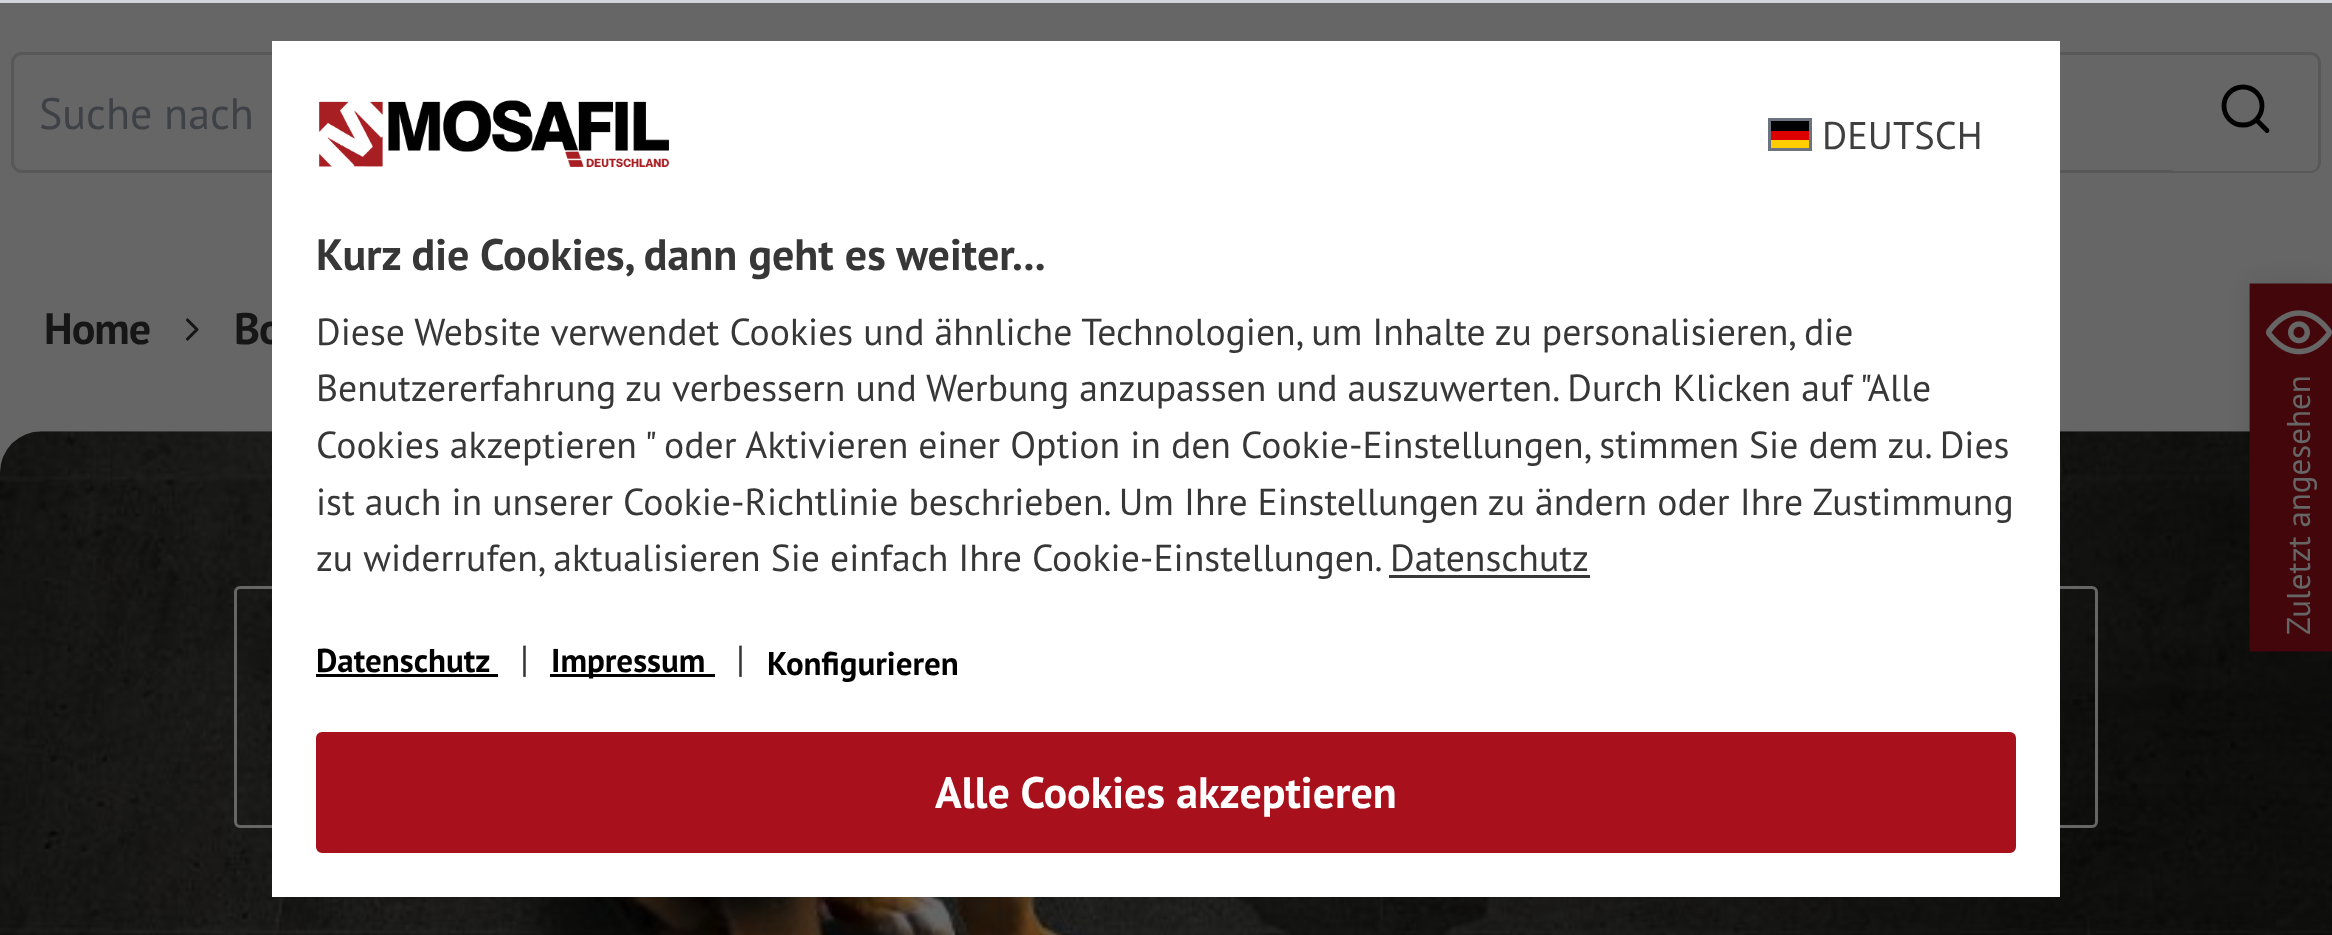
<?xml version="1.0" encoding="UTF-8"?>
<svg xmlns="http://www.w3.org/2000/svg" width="2332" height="935">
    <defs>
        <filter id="blur1" x="-50%" y="-200%" width="200%" height="500%"><feGaussianBlur stdDeviation="14"/></filter>
    </defs>
    <rect width="100%" height="100%" fill="#666666"/>
    <rect x="12.5" y="53.5" width="2307" height="118" rx="9.5" fill="none" stroke="#585858" stroke-width="3"/>
    <text x="39" y="129" font-family="PT Sans" font-size="44" fill="#3E4146">Suche nach</text>
    <path d="M 2173 55 H 2310 C 2314.5 55 2318 58.5 2318 63 V 163 C 2318 167.5 2314.5 171 2310 171 H 2173 Z" fill="#666666"/>
    <circle cx="2243" cy="106" r="19" fill="none" stroke="#000000" stroke-width="4.8"/>
    <path d="M 2267 130.5 L 2256.5 120" fill="none" stroke="#000000" stroke-width="4.8" stroke-linecap="round" stroke-linejoin="round"/>
    <text x="44" y="344" font-family="PT Sans" font-size="44" font-weight="700" letter-spacing="-1" fill="#161616">Home</text>
    <path d="M 187.5 339 L 197 329.5 L 187.5 320" fill="none" stroke="#161616" stroke-width="3.1" stroke-linecap="round" stroke-linejoin="round"/>
    <text x="234" y="344" font-family="PT Sans" font-size="44" font-weight="700" letter-spacing="-1" fill="#161616">Bo</text>
    <image x="0" y="431" width="2332" height="504" href="img_01.png"/>
    <rect x="235.5" y="587.5" width="1861" height="239" rx="4.5" fill="none" stroke="#666666" stroke-width="3"/>
    <rect x="0" y="0" width="2332" height="3" fill="#D1D5DB"/>
    <rect x="272" y="41" width="1788" height="856" fill="#FFFFFF"/>
    <image x="319" y="100" width="350" height="68" href="img_02.png"/>
    <rect x="1771" y="140" width="38" height="8" fill="#FFCE00"/>
    <rect x="1771" y="121" width="38" height="10" fill="#000000"/>
    <rect x="1771" y="131" width="38" height="9" fill="#DD0000"/>
    <rect x="1769.5" y="119.5" width="41" height="30" fill="none" stroke="#6B7280" stroke-width="3"/>
    <text x="1822" y="149" font-family="PT Sans" font-size="38.5" fill="#3F3F3F">DEUTSCH</text>
    <text x="316" y="270" font-family="PT Sans" font-size="44" font-weight="700" fill="#373737">Kurz die Cookies, dann geht es weiter...</text>
    <text font-family="PT Sans" font-size="37.7" fill="#373737">
        <tspan x="316" y="345">Diese Website verwendet Cookies und ähnliche Technologien, um Inhalte zu personalisieren, die</tspan>
        <tspan x="316" y="401">Benutzererfahrung zu verbessern und Werbung anzupassen und auszuwerten. Durch Klicken auf "Alle</tspan>
        <tspan x="316" y="458">Cookies akzeptieren " oder Aktivieren einer Option in den Cookie-Einstellungen, stimmen Sie dem zu. Dies</tspan>
        <tspan x="316" y="515">ist auch in unserer Cookie-Richtlinie beschrieben. Um Ihre Einstellungen zu ändern oder Ihre Zustimmung</tspan>
        <tspan x="316" y="571">zu widerrufen, aktualisieren Sie einfach Ihre Cookie-Einstellungen.</tspan>
    </text>
    <text x="1390" y="571" font-family="PT Sans" font-size="37.7" fill="#373737">Datenschutz</text>
    <rect x="1389" y="575" width="201" height="3" fill="#373737"/>
    <text x="316" y="672" font-family="PT Sans" font-size="33" font-weight="700" fill="#000000">Datenschutz</text>
    <rect x="316" y="674" width="182" height="3" fill="#000000"/>
    <text x="520" y="672" font-family="PT Sans" font-size="37.7" fill="#373737">|</text>
    <rect x="550" y="674" width="165" height="3" fill="#000000"/>
    <text x="551" y="672" font-family="PT Sans" font-size="33" font-weight="700" fill="#000000">Impressum</text>
    <text x="736" y="672" font-family="PT Sans" font-size="37.7" fill="#373737">|</text>
    <text x="767" y="675" font-family="PT Sans" font-size="33" font-weight="700" fill="#000000">Konfigurieren</text>
    <rect x="317.5" y="733.5" width="1697" height="118" rx="4.5" fill="#A8111C" stroke="#A8111C" stroke-width="3"/>
    <text x="935" y="808" font-family="PT Sans" font-size="44" font-weight="700" fill="#FFFFFF">Alle Cookies akzeptieren</text>
    <rect x="2250" y="283" width="82" height="369" fill="#000000" fill-opacity="0.1" filter="url(#blur1)"/>
    <path d="M 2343 651 H 2250 V 284 H 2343 C 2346 284 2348 286 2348 289 V 646 C 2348 649 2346 651 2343 651 Z" fill="#43070B"/>
    <path d="M 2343 650 H 2251 V 285 H 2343 C 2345.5 285 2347 287 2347 289 V 646 C 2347 648 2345.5 650 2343 650 Z" fill="none" stroke="#43070B" stroke-width="2.8"/>
    <image x="2266" y="310" width="66" height="45" href="img_03.png"/>
    <text x="2310" y="635" transform="rotate(-90 2310 635)" font-family="PT Sans" font-size="33" fill="#666666">Zuletzt angesehen</text>
</svg>
